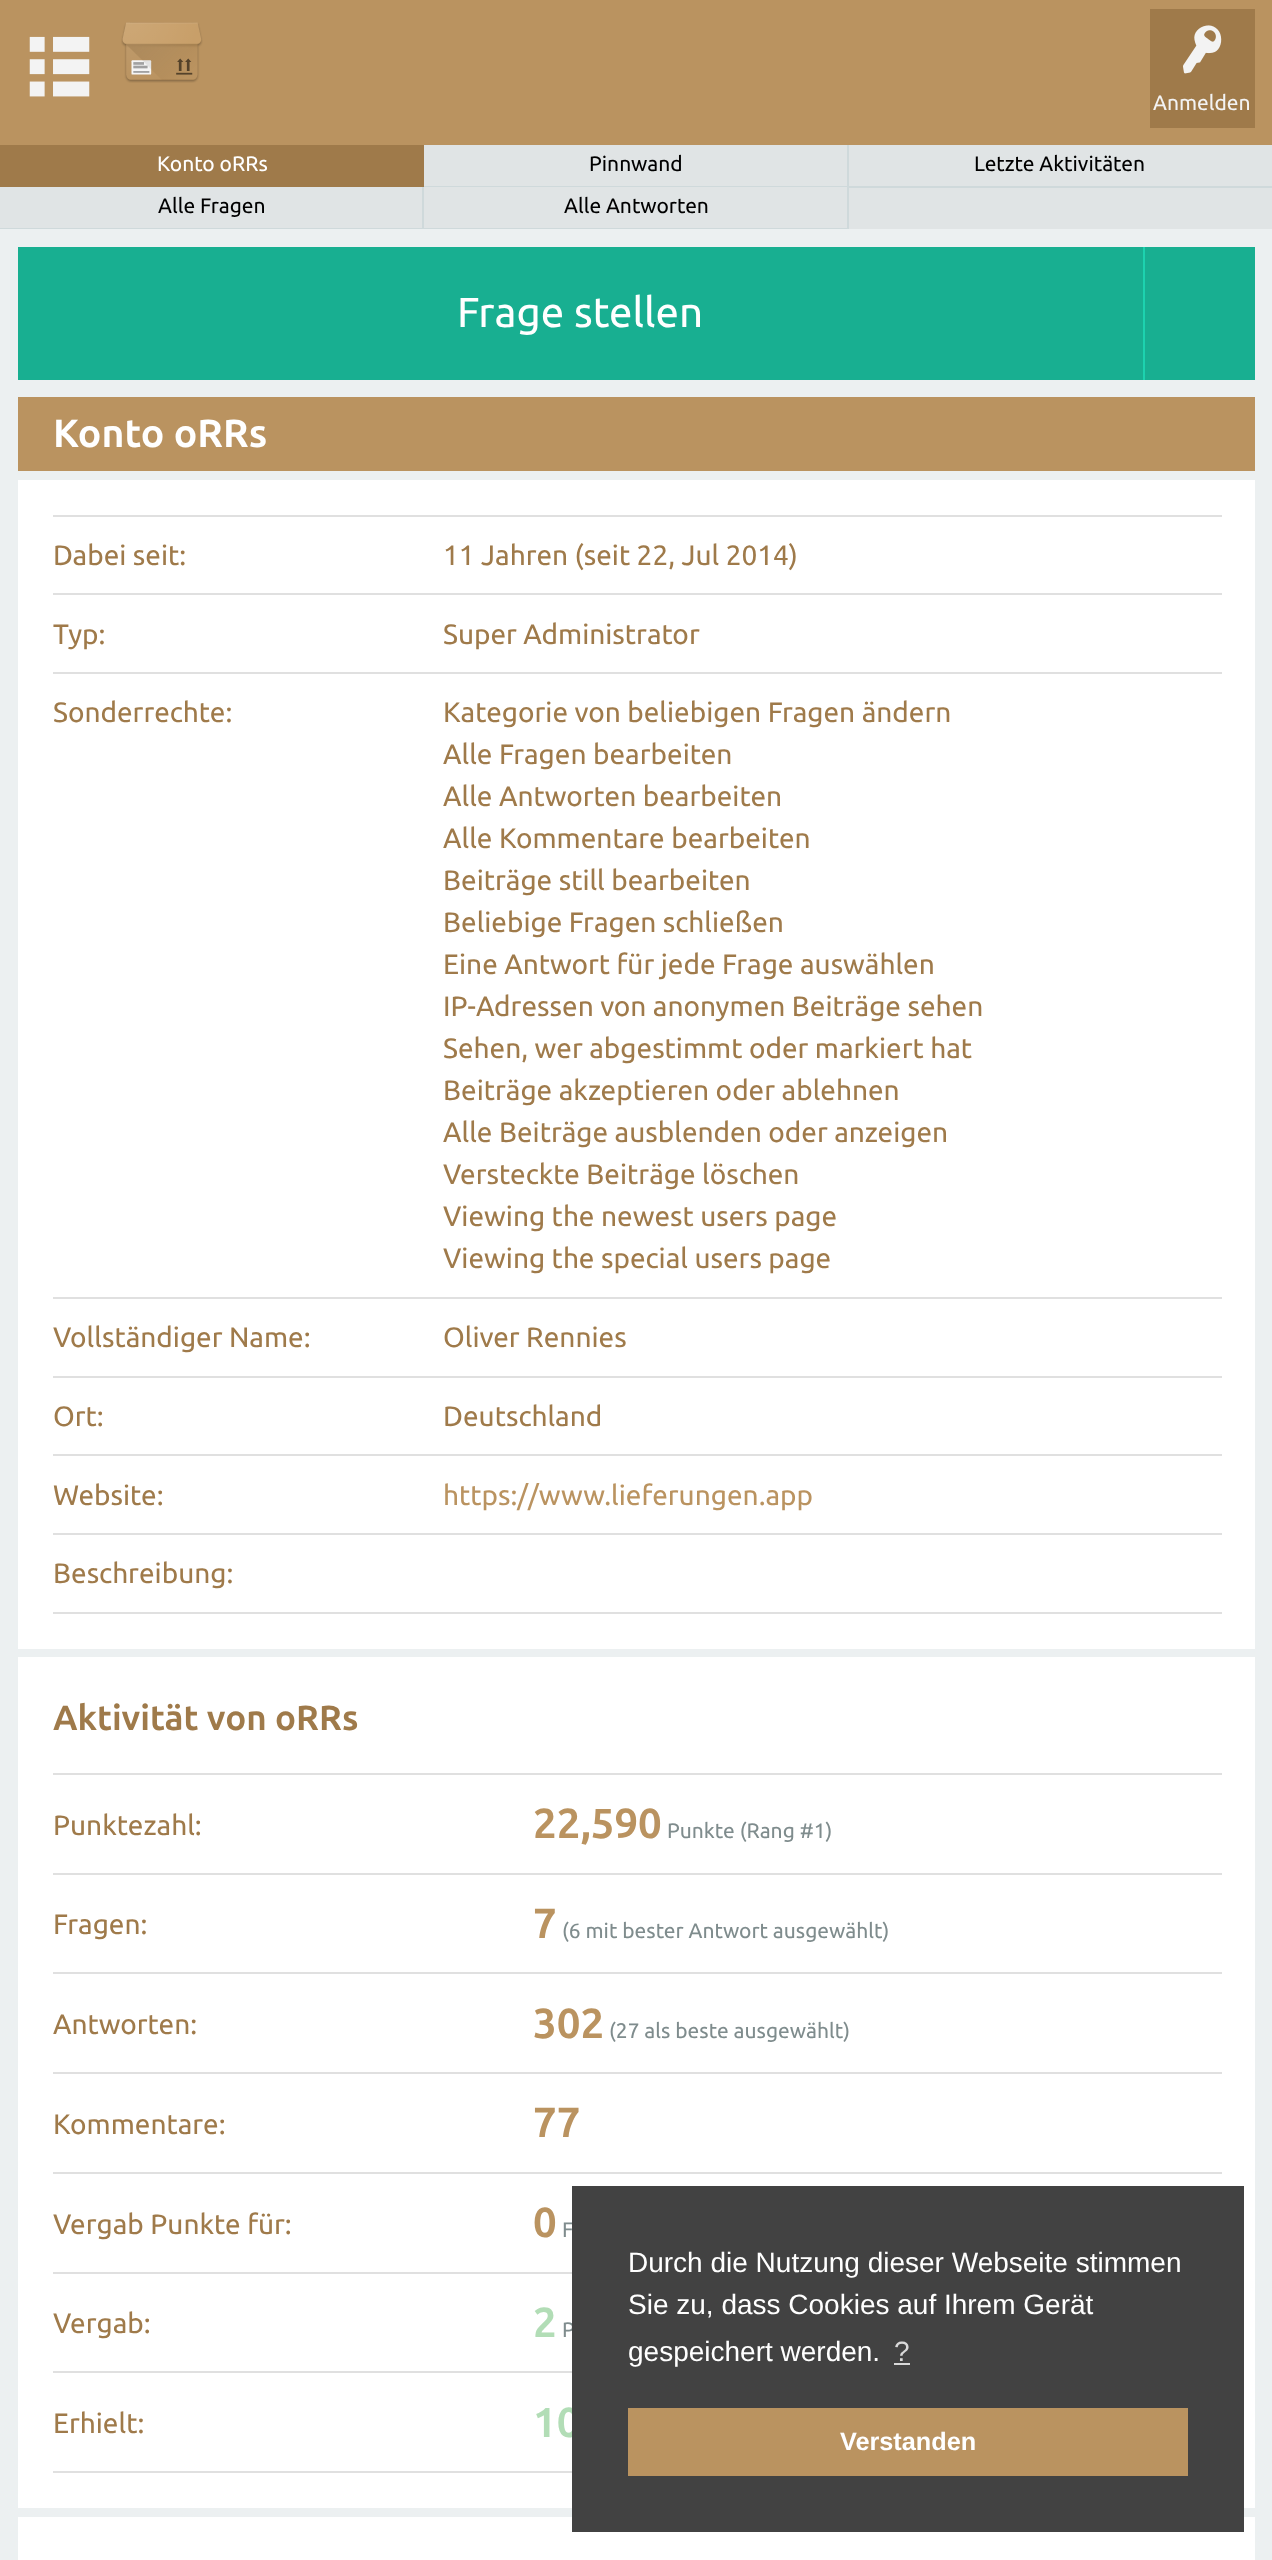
<?xml version="1.0" encoding="UTF-8"?>
<svg xmlns="http://www.w3.org/2000/svg" width="1272" height="2560">
    <defs>
        <clipPath id="clip1"><rect x="424" y="145" width="425" height="42"/></clipPath>
        <clipPath id="clip2"><rect x="0" y="187" width="424" height="42"/></clipPath>
        <clipPath id="clip3"><rect x="424" y="187" width="425" height="42"/></clipPath>
    </defs>
    <rect width="100%" height="100%" fill="#ECF0F1"/>
    <rect x="0" y="0" width="1272" height="145" fill="#BA9360"/>
    <image x="29" y="36" width="61" height="61" href="img_01.png"/>
    <image x="121" y="22" width="82" height="61" href="img_02.png"/>
    <rect x="1150" y="9" width="105" height="119" fill="#9F7A4A"/>
    <image x="1183" y="25" width="39" height="49" href="img_03.png"/>
    <text x="1153" y="110" font-family="Ubuntu" font-size="21" fill="#F3F3F3">Anmelden</text>
    <rect x="0" y="145" width="1272" height="84" fill="#E0E4E5"/>
    <rect x="0" y="145" width="424" height="42" fill="#9F7A4A"/>
    <text x="157" y="171" font-family="Ubuntu" font-size="21" fill="#FFFFFF">Konto oRRs</text>
    <g clip-path="url(#clip1)">
        <path d="M 250 -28 H 1022 V 360 H 250 Z M 422 144 H 847 V 186 H 422 Z" fill="#CFD9DB" fill-rule="evenodd"/>
    </g>
    <text x="589" y="171" font-family="Ubuntu" font-size="21" fill="#000000">Pinnwand</text>
    <rect x="849" y="186" width="423" height="2" fill="#CFD9DB"/>
    <text x="974" y="171" font-family="Ubuntu" font-size="21" fill="#000000">Letzte Aktivitäten</text>
    <g clip-path="url(#clip2)">
        <path d="M -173 14 H 597 V 402 H -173 Z M -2 186 H 422 V 228 H -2 Z" fill="#CFD9DB" fill-rule="evenodd"/>
    </g>
    <text x="158" y="213" font-family="Ubuntu" font-size="21" fill="#000000">Alle Fragen</text>
    <g clip-path="url(#clip3)">
        <path d="M 250 14 H 1022 V 402 H 250 Z M 422 186 H 847 V 228 H 422 Z" fill="#CFD9DB" fill-rule="evenodd"/>
    </g>
    <text x="564" y="213" font-family="Ubuntu" font-size="21" fill="#000000">Alle Antworten</text>
    <rect x="18" y="247" width="1125" height="133" fill="#18AF91"/>
    <text x="457" y="327" font-family="Ubuntu" font-size="42" fill="#FFFFFF">Frage stellen</text>
    <rect x="1145" y="247" width="110" height="133" fill="#18AF91"/>
    <rect x="1143" y="247" width="2" height="133" fill="#1DD2AF"/>
    <rect x="18" y="397" width="1237" height="74" fill="#BA9360"/>
    <text x="53" y="447" font-family="Ubuntu" font-size="39.25" font-weight="700" fill="#FFFFFF">Konto oRRs</text>
    <rect x="18" y="480" width="1237" height="1169" fill="#FFFFFF"/>
    <text x="53" y="565" font-family="Ubuntu" font-size="28" fill="#9F7A4A">Dabei seit:</text>
    <rect x="53" y="515" width="1169" height="2" fill="#E0E0E0"/>
    <text x="443" y="565" font-family="Ubuntu" font-size="28" fill="#9F7A4A">11 Jahren (seit 22, Jul 2014)</text>
    <text x="53" y="644" font-family="Ubuntu" font-size="28" fill="#9F7A4A">Typ:</text>
    <rect x="53" y="593" width="1169" height="2" fill="#E0E0E0"/>
    <text x="443" y="644" font-family="Ubuntu" font-size="28" fill="#9F7A4A">Super Administrator</text>
    <text x="53" y="722" font-family="Ubuntu" font-size="28" fill="#9F7A4A">Sonderrechte:</text>
    <rect x="53" y="672" width="1169" height="2" fill="#E0E0E0"/>
    <text font-family="Ubuntu" font-size="28" fill="#9F7A4A">
        <tspan x="443" y="722">Kategorie von beliebigen Fragen ändern</tspan>
        <tspan x="443" y="764">Alle Fragen bearbeiten</tspan>
        <tspan x="443" y="806">Alle Antworten bearbeiten</tspan>
        <tspan x="443" y="848">Alle Kommentare bearbeiten</tspan>
        <tspan x="443" y="890">Beiträge still bearbeiten</tspan>
        <tspan x="443" y="932">Beliebige Fragen schließen</tspan>
        <tspan x="443" y="974">Eine Antwort für jede Frage auswählen</tspan>
        <tspan x="443" y="1016">IP-Adressen von anonymen Beiträge sehen</tspan>
        <tspan x="443" y="1058">Sehen, wer abgestimmt oder markiert hat</tspan>
        <tspan x="443" y="1100">Beiträge akzeptieren oder ablehnen</tspan>
        <tspan x="443" y="1142">Alle Beiträge ausblenden oder anzeigen</tspan>
        <tspan x="443" y="1184">Versteckte Beiträge löschen</tspan>
        <tspan x="443" y="1226">Viewing the newest users page</tspan>
        <tspan x="443" y="1268">Viewing the special users page</tspan>
    </text>
    <text x="53" y="1347" font-family="Ubuntu" font-size="28" fill="#9F7A4A">Vollständiger Name:</text>
    <rect x="53" y="1297" width="1169" height="2" fill="#E0E0E0"/>
    <text x="443" y="1347" font-family="Ubuntu" font-size="28" fill="#9F7A4A">Oliver Rennies</text>
    <text x="53" y="1426" font-family="Ubuntu" font-size="28" fill="#9F7A4A">Ort:</text>
    <rect x="53" y="1376" width="1169" height="2" fill="#E0E0E0"/>
    <text x="443" y="1426" font-family="Ubuntu" font-size="28" fill="#9F7A4A">Deutschland</text>
    <text x="53" y="1505" font-family="Ubuntu" font-size="28" fill="#9F7A4A">Website:</text>
    <rect x="53" y="1454" width="1169" height="2" fill="#E0E0E0"/>
    <text x="443" y="1505" font-family="Ubuntu" font-size="28" fill="#BA9360">https://www.lieferungen.app</text>
    <rect x="53" y="1533" width="1169" height="2" fill="#E0E0E0"/>
    <rect x="53" y="1612" width="1169" height="2" fill="#E0E0E0"/>
    <text x="53" y="1583" font-family="Ubuntu" font-size="28" fill="#9F7A4A">Beschreibung:</text>
    <rect x="18" y="1657" width="1237" height="851" fill="#FFFFFF"/>
    <text x="53" y="1730" font-family="Ubuntu" font-size="35" font-weight="700" fill="#9F7A4A">Aktivität von oRRs</text>
    <text x="53" y="1835" font-family="Ubuntu" font-size="28" fill="#9F7A4A">Punktezahl:</text>
    <rect x="53" y="1773" width="1169" height="2" fill="#E0E0E0"/>
    <text x="533" y="1838" font-family="Ubuntu" font-size="42" font-weight="700" fill="#BA9360">22,590</text>
    <text x="667" y="1838" font-family="Ubuntu" font-size="21" fill="#7F8C8D">Punkte (Rang #1)</text>
    <text x="53" y="1934" font-family="Ubuntu" font-size="28" fill="#9F7A4A">Fragen:</text>
    <rect x="53" y="1873" width="1169" height="2" fill="#E0E0E0"/>
    <text x="533" y="1938" font-family="Ubuntu" font-size="42" font-weight="700" fill="#BA9360">7</text>
    <text x="562" y="1938" font-family="Ubuntu" font-size="21" fill="#7F8C8D">(6 mit bester Antwort ausgewählt)</text>
    <text x="53" y="2034" font-family="Ubuntu" font-size="28" fill="#9F7A4A">Antworten:</text>
    <rect x="53" y="1972" width="1169" height="2" fill="#E0E0E0"/>
    <text x="533" y="2038" font-family="Ubuntu" font-size="42" font-weight="700" fill="#BA9360">302</text>
    <text x="609" y="2038" font-family="Ubuntu" font-size="21" fill="#7F8C8D">(27 als beste ausgewählt)</text>
    <text x="53" y="2134" font-family="Ubuntu" font-size="28" fill="#9F7A4A">Kommentare:</text>
    <rect x="53" y="2072" width="1169" height="2" fill="#E0E0E0"/>
    <text x="533" y="2137" font-family="Ubuntu" font-size="42" font-weight="700" fill="#BA9360">77</text>
    <text x="53" y="2234" font-family="Ubuntu" font-size="28" fill="#9F7A4A">Vergab Punkte für:</text>
    <rect x="53" y="2172" width="1169" height="2" fill="#E0E0E0"/>
    <text x="533" y="2237" font-family="Ubuntu" font-size="42" font-weight="700" fill="#BA9360">0</text>
    <text x="562" y="2237" font-family="Ubuntu" font-size="21" fill="#7F8C8D">F</text>
    <text x="53" y="2333" font-family="Ubuntu" font-size="28" fill="#9F7A4A">Vergab:</text>
    <rect x="53" y="2272" width="519" height="2" fill="#E0E0E0"/>
    <text x="533" y="2337" font-family="Ubuntu" font-size="42" font-weight="700" fill="#B2DDB6">2</text>
    <text x="562" y="2337" font-family="Ubuntu" font-size="21" fill="#7F8C8D">P</text>
    <text x="53" y="2433" font-family="Ubuntu" font-size="28" fill="#9F7A4A">Erhielt:</text>
    <rect x="53" y="2371" width="519" height="2" fill="#E0E0E0"/>
    <rect x="53" y="2471" width="519" height="2" fill="#E0E0E0"/>
    <text x="533" y="2437" font-family="Ubuntu" font-size="42" font-weight="700" fill="#B2DDB6">10</text>
    <rect x="18" y="2517" width="1237" height="43" fill="#FFFFFF"/>
    <rect x="572" y="2186" width="672" height="346" fill="#424242"/>
    <text font-family="Liberation Sans" font-size="28" fill="#FFFFFF">
        <tspan x="628" y="2272">Durch die Nutzung dieser Webseite stimmen</tspan>
        <tspan x="628" y="2314">Sie zu, dass Cookies auf Ihrem Gerät</tspan>
        <tspan x="628" y="2361">gespeichert werden.</tspan>
    </text>
    <text x="894" y="2361" font-family="Liberation Sans" font-size="28" fill="#D9D9D9">?</text>
    <rect x="894" y="2363" width="16" height="2" fill="#D9D9D9"/>
    <rect x="628" y="2408" width="560" height="68" fill="#BA9360"/>
    <text x="840" y="2450" font-family="Liberation Sans" font-size="25.25" font-weight="700" fill="#FFFFFF">Verstanden</text>
</svg>
